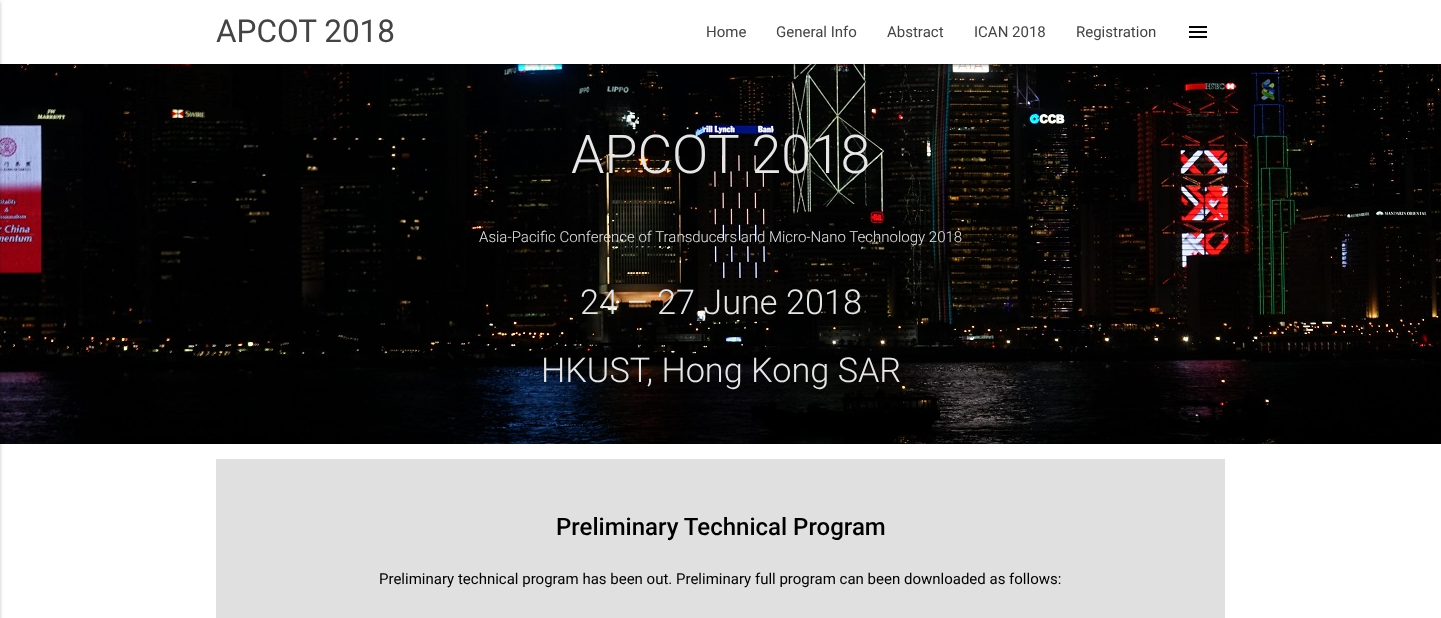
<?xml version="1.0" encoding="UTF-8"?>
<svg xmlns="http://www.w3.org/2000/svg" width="1441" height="618">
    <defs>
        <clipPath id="clip1"><rect x="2" y="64" width="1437" height="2"/></clipPath>
        <filter id="blur1" x="-50%" y="-200%" width="200%" height="500%"><feGaussianBlur stdDeviation="0.5"/></filter>
        <clipPath id="clip2"><rect x="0" y="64" width="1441" height="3"/></clipPath>
        <filter id="blur2" x="-50%" y="-200%" width="200%" height="500%"><feGaussianBlur stdDeviation="2.5"/></filter>
        <filter id="blur3" x="-50%" y="-200%" width="200%" height="500%"><feGaussianBlur stdDeviation="1"/></filter>
    </defs>
    <rect width="100%" height="100%" fill="#FFFFFF"/>
    <image x="0" y="64" width="1441" height="380" href="img_02.png"/>
    <g clip-path="url(#clip1)">
        <rect x="2" y="5" width="1437" height="60" fill="#000000" fill-opacity="0.2" filter="url(#blur1)"/>
    </g>
    <g clip-path="url(#clip2)">
        <rect x="0" y="1" width="1441" height="64" fill="#000000" fill-opacity="0.12" filter="url(#blur2)"/>
        <rect x="0" y="2" width="1441" height="64" fill="#000000" fill-opacity="0.14" filter="url(#blur3)"/>
    </g>
    <rect x="-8" y="1" width="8" height="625" fill="#000000" fill-opacity="0.12" filter="url(#blur2)"/>
    <rect x="-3" y="2" width="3" height="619" fill="#000000" fill-opacity="0.14" filter="url(#blur3)"/>
    <text x="216" y="42" font-family="Roboto" font-size="31.5" fill="#444444">APCOT 2018</text>
    <text x="706" y="37" font-family="Roboto" font-size="15" fill="#444444">Home</text>
    <text x="776" y="37" font-family="Roboto" font-size="15" fill="#444444">General Info</text>
    <text x="887" y="37" font-family="Roboto" font-size="15" fill="#444444">Abstract</text>
    <text x="974" y="37" font-family="Roboto" font-size="15" fill="#444444">ICAN 2018</text>
    <text x="1076" y="37" font-family="Roboto" font-size="15" fill="#444444">Registration</text>
    <image x="1189" y="26" width="18" height="12" href="img_01.png"/>
    <text x="571" y="173" font-family="Roboto" font-size="53.5" font-weight="300" fill="#E7E7E7">APCOT 2018</text>
    <text x="479" y="242" font-family="Roboto" font-size="15" font-weight="300" fill="#E7E7E7">Asia-Pacific Conference of Transducers and Micro-Nano Technology 2018</text>
    <text x="580" y="314" font-family="Roboto" font-size="34.25" font-weight="300" fill="#E7E7E7">24 – 27 June 2018</text>
    <text x="541" y="382" font-family="Roboto" font-size="34.25" font-weight="300" fill="#E7E7E7">HKUST, Hong Kong SAR</text>
    <rect x="216" y="459" width="1009" height="159" fill="#E0E0E0"/>
    <text x="556" y="535" font-family="Roboto" font-size="24" font-weight="500" fill="#000000">Preliminary Technical Program</text>
    <text x="379" y="584" font-family="Roboto" font-size="15" fill="#000000">Preliminary technical program has been out. Preliminary full program can been downloaded as follows:</text>
</svg>
